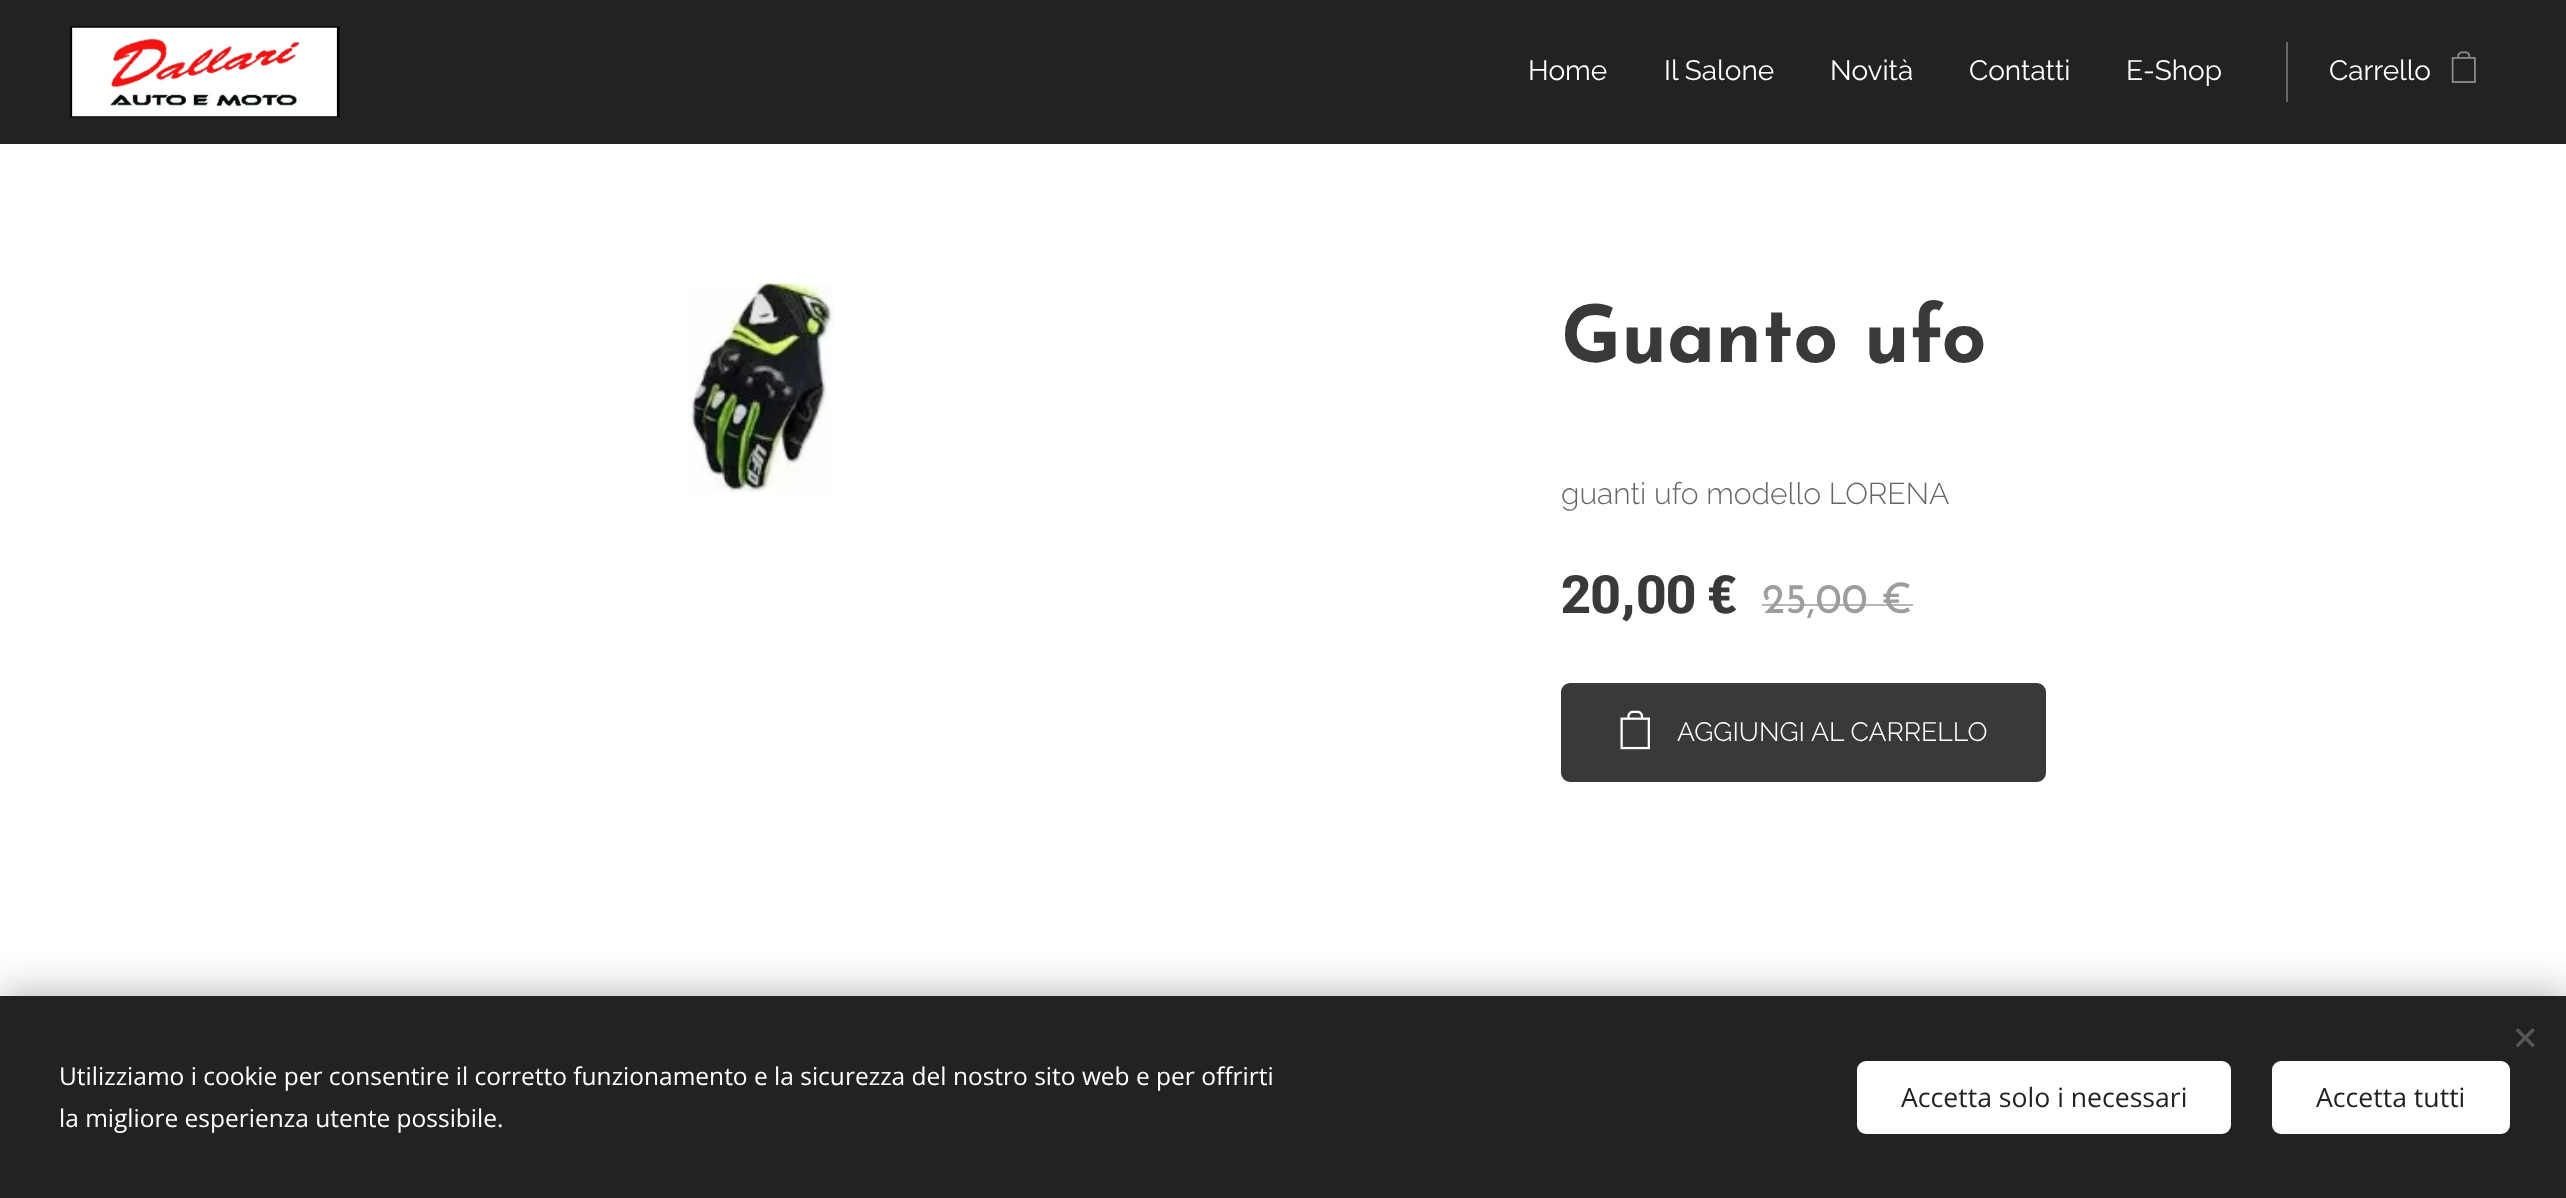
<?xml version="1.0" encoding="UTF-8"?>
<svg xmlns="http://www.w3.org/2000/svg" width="2566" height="1198">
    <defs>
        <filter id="blur1" x="-50%" y="-200%" width="200%" height="500%"><feGaussianBlur stdDeviation="22"/></filter>
    </defs>
    <rect width="100%" height="100%" fill="#FFFFFF"/>
    <rect x="0" y="0" width="2566" height="144" fill="#222222"/>
    <image x="70" y="26" width="270" height="92" href="img_01.png"/>
    <text x="1528" y="80" font-family="Raleway" font-size="28" fill="#FFFFFF">Home</text>
    <text x="1664" y="80" font-family="Raleway" font-size="28" fill="#FFFFFF">Il Salone</text>
    <text x="1830" y="80" font-family="Raleway" font-size="28" fill="#FFFFFF">Novità</text>
    <text x="1969" y="80" font-family="Raleway" font-size="28" fill="#FFFFFF">Contatti</text>
    <text x="2126" y="80" font-family="Raleway" font-size="28" fill="#FFFFFF">E-Shop</text>
    <rect x="2286" y="42" width="2" height="60" fill="#666666"/>
    <text x="2329" y="80" font-family="Raleway" font-size="28" fill="#FFFFFF">Carrello</text>
    <image x="2451" y="51" width="25" height="32" href="img_02.png"/>
    <image x="688" y="283" width="146" height="210" href="img_03.png"/>
    <text x="1561" y="362" font-family="Josefin Sans" font-size="78.75" font-weight="700" fill="#393939">Guanto ufo</text>
    <text x="1561" y="504" font-family="Raleway" font-size="30.1" font-weight="300" fill="#666666">guanti ufo modello LORENA</text>
    <text x="1561" y="613" font-family="Roboto Flex" font-size="52.5" font-weight="700" fill="#393939">20,00 €</text>
    <text x="1762" y="613" font-family="Josefin Sans" font-size="42" fill="#9D9D9D">25,00 €</text>
    <rect x="1762" y="604" width="151" height="2" fill="#9D9D9D" fill-opacity="0.75"/>
    <rect x="1563" y="685" width="481" height="95" rx="7" fill="#393939" stroke="#393939" stroke-width="4"/>
    <image x="1620" y="710" width="30" height="40" href="img_04.png"/>
    <text x="1677" y="741" font-family="'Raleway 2'" font-size="26.6" font-weight="300" fill="#FFFFFF">AGGIUNGI AL CARRELLO</text>
    <rect x="0" y="996" width="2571" height="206" fill="#000000" fill-opacity="0.33" filter="url(#blur1)"/>
    <rect x="0" y="996" width="2566" height="202" fill="#222222"/>
    <path d="M 2515.5 1045 L 2532.5 1028 L 2535 1030.5 L 2518 1047.5 Z" fill="#555555"/>
    <path d="M 2518 1028 L 2535 1045 L 2532.5 1047.5 L 2515.5 1030.5 Z" fill="#555555"/>
    <text font-family="Open Sans" font-size="24.5" fill="#FFFFFF">
        <tspan x="59" y="1085">Utilizziamo i cookie per consentire il corretto funzionamento e la sicurezza del nostro sito web e per offrirti</tspan>
        <tspan x="59" y="1127">la migliore esperienza utente possibile.</tspan>
    </text>
    <rect x="1857" y="1061" width="374" height="73" rx="9" fill="#FFFFFF"/>
    <text x="1901" y="1107" font-family="Open Sans" font-size="26.6" fill="#222222">Accetta solo i necessari</text>
    <rect x="2272" y="1061" width="238" height="73" rx="9" fill="#FFFFFF"/>
    <text x="2316" y="1107" font-family="Open Sans" font-size="26.6" fill="#222222">Accetta tutti</text>
</svg>
